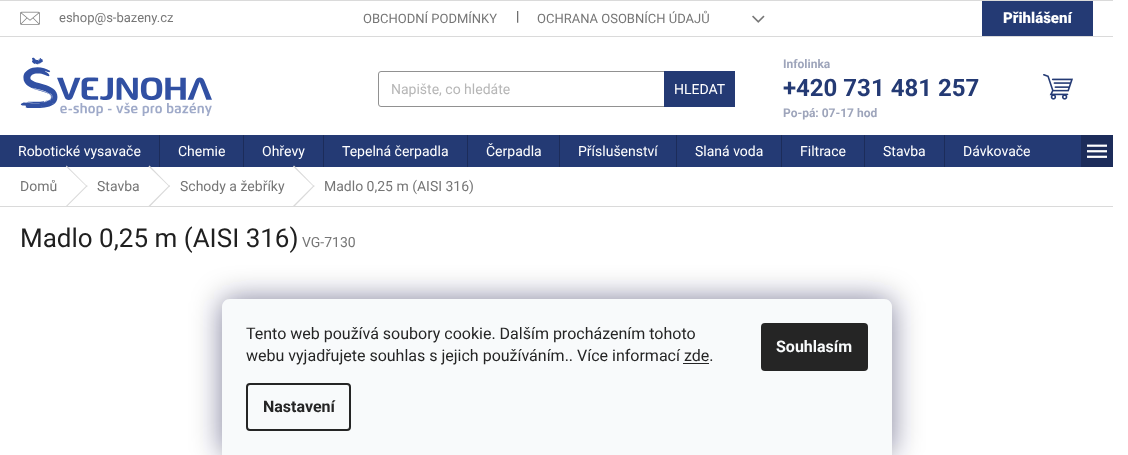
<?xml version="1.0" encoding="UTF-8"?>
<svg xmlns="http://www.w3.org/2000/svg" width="1128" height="455">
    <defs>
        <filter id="blur1" x="-50%" y="-200%" width="200%" height="500%"><feGaussianBlur stdDeviation="15"/></filter>
    </defs>
    <rect width="100%" height="100%" fill="#FFFFFF"/>
    <rect x="0" y="0" width="1113" height="1" fill="#DADADA"/>
    <rect x="0" y="36" width="1113" height="1" fill="#DADADA"/>
    <image x="20" y="11" width="20" height="14" href="img_01.png"/>
    <text x="59" y="22" font-family="Roboto" font-size="13" fill="#767676">eshop@s-bazeny.cz</text>
    <text x="363" y="23" font-family="Roboto" font-size="13" fill="#767676">OBCHODNÍ PODMÍNKY</text>
    <text x="516" y="21" font-family="Roboto" font-size="14" fill="#4D4D4D">|</text>
    <text x="537" y="23" font-family="Roboto" font-size="13" fill="#767676">OCHRANA OSOBNÍCH ÚDAJŮ</text>
    <image x="752" y="15" width="13" height="8" href="img_02.png"/>
    <rect x="982" y="1" width="111" height="35" fill="#243A74"/>
    <text x="1003" y="23" font-family="Roboto" font-size="15" font-weight="900" fill="#FFFFFF">Přihlášení</text>
    <image x="20" y="57" width="192" height="59" href="img_03.png"/>
    <rect x="378.5" y="71.5" width="356" height="35" rx="2.5" fill="none" stroke="#919191"/>
    <text x="391" y="94" font-family="Roboto" font-size="14" fill="#B6B6B6">Napište, co hledáte</text>
    <rect x="664" y="71" width="71" height="36" fill="#243A74"/>
    <text x="674" y="94" font-family="Roboto" font-size="14" fill="#FFFFFF">HLEDAT</text>
    <text x="783" y="68" font-family="Roboto" font-size="12" font-weight="700" fill="#9EA5BB">Infolinka</text>
    <text x="783" y="96" font-family="Roboto" font-size="24" font-weight="700" fill="#243A74">+420 731 481 257</text>
    <text x="783" y="117" font-family="Roboto" font-size="12" font-weight="700" fill="#9EA5BB">Po-pá: 07-17 hod</text>
    <image x="1043" y="74" width="30" height="26" href="img_04.png"/>
    <rect x="0" y="135" width="1081" height="32" fill="#243A74"/>
    <text x="18" y="156" font-family="Roboto" font-size="14" fill="#FFFFFF">Robotické vysavače</text>
    <rect x="159" y="135" width="1" height="32" fill="#1C2C5A"/>
    <text x="178" y="156" font-family="Roboto" font-size="14" fill="#FFFFFF">Chemie</text>
    <rect x="243" y="135" width="1" height="32" fill="#1C2C5A"/>
    <text x="262" y="156" font-family="Roboto" font-size="14" fill="#FFFFFF">Ohřevy</text>
    <rect x="323" y="135" width="1" height="32" fill="#1C2C5A"/>
    <text x="342" y="156" font-family="Roboto" font-size="14" fill="#FFFFFF">Tepelná čerpadla</text>
    <rect x="467" y="135" width="1" height="32" fill="#1C2C5A"/>
    <text x="486" y="156" font-family="Roboto" font-size="14" fill="#FFFFFF">Čerpadla</text>
    <rect x="559" y="135" width="1" height="32" fill="#1C2C5A"/>
    <text x="578" y="156" font-family="Roboto" font-size="14" fill="#FFFFFF">Příslušenství</text>
    <rect x="676" y="135" width="1" height="32" fill="#1C2C5A"/>
    <text x="695" y="156" font-family="Roboto" font-size="14" fill="#FFFFFF">Slaná voda</text>
    <rect x="781" y="135" width="1" height="32" fill="#1C2C5A"/>
    <text x="800" y="156" font-family="Roboto" font-size="14" fill="#FFFFFF">Filtrace</text>
    <rect x="864" y="135" width="1" height="32" fill="#1C2C5A"/>
    <text x="883" y="156" font-family="Roboto" font-size="14" fill="#FFFFFF">Stavba</text>
    <rect x="944" y="135" width="1" height="32" fill="#1C2C5A"/>
    <text x="963" y="156" font-family="Roboto" font-size="14" fill="#FFFFFF">Dávkovače</text>
    <rect x="1081" y="135" width="32" height="32" fill="#1C2C5A"/>
    <image x="1087" y="144" width="20" height="14" href="img_05.png"/>
    <rect x="0" y="206" width="1113" height="1" fill="#DADADA"/>
    <text x="20" y="191" font-family="Roboto" font-size="14" fill="#767676">Domů</text>
    <path d="M 66 166.5 L 66.5 165.5 L 87.5 186.5 L 87 187 Z" fill="#DADADA"/>
    <path d="M 87 185 L 87.5 186 L 66.5 207 L 66 206 Z" fill="#DADADA"/>
    <text x="97" y="191" font-family="Roboto" font-size="14" fill="#767676">Stavba</text>
    <path d="M 148.5 166.5 L 149.5 165.5 L 170 186.5 L 169.5 187 Z" fill="#DADADA"/>
    <path d="M 169.5 185 L 170 186 L 149.5 207 L 148.5 206 Z" fill="#DADADA"/>
    <text x="180" y="191" font-family="Roboto" font-size="14" fill="#767676">Schody a žebříky</text>
    <path d="M 293 166.5 L 294 165.5 L 314.5 186.5 L 314 187 Z" fill="#DADADA"/>
    <path d="M 314 185 L 314.5 186 L 294 207 L 293 206 Z" fill="#DADADA"/>
    <text x="324" y="191" font-family="Roboto" font-size="14" fill="#767676">Madlo 0,25 m (AISI 316)</text>
    <text x="20" y="247" font-family="Roboto" font-size="26" fill="#1F1F1F">Madlo 0,25 m (AISI 316)</text>
    <text x="302" y="247" font-family="Roboto" font-size="14" fill="#767676">VG-7130</text>
    <rect x="222" y="299" width="670" height="156" rx="8" fill="#1B1939" fill-opacity="0.5" filter="url(#blur1)"/>
    <path d="M 230 299 H 884 C 888.5 299 892 302.5 892 307 V 455 H 222 V 307 C 222 302.5 225.5 299 230 299 Z" fill="#F8FAFB"/>
    <text font-family="Roboto" font-size="16" fill="#252525">
        <tspan x="246" y="339">Tento web používá soubory cookie. Dalším procházením tohoto</tspan>
        <tspan x="246" y="361">webu vyjadřujete souhlas s jejich používáním.. Více informací zde.</tspan>
    </text>
    <rect x="683" y="363" width="26" height="1" fill="#252525"/>
    <rect x="247" y="384" width="103" height="46" rx="3" fill="none" stroke="#252525" stroke-width="2"/>
    <text x="263" y="412" font-family="Roboto" font-size="16" font-weight="700" fill="#252525">Nastavení</text>
    <rect x="761" y="323" width="107" height="48" rx="4" fill="#252525"/>
    <text x="776" y="352" font-family="Roboto" font-size="16" font-weight="700" fill="#F8FAFB">Souhlasím</text>
</svg>
